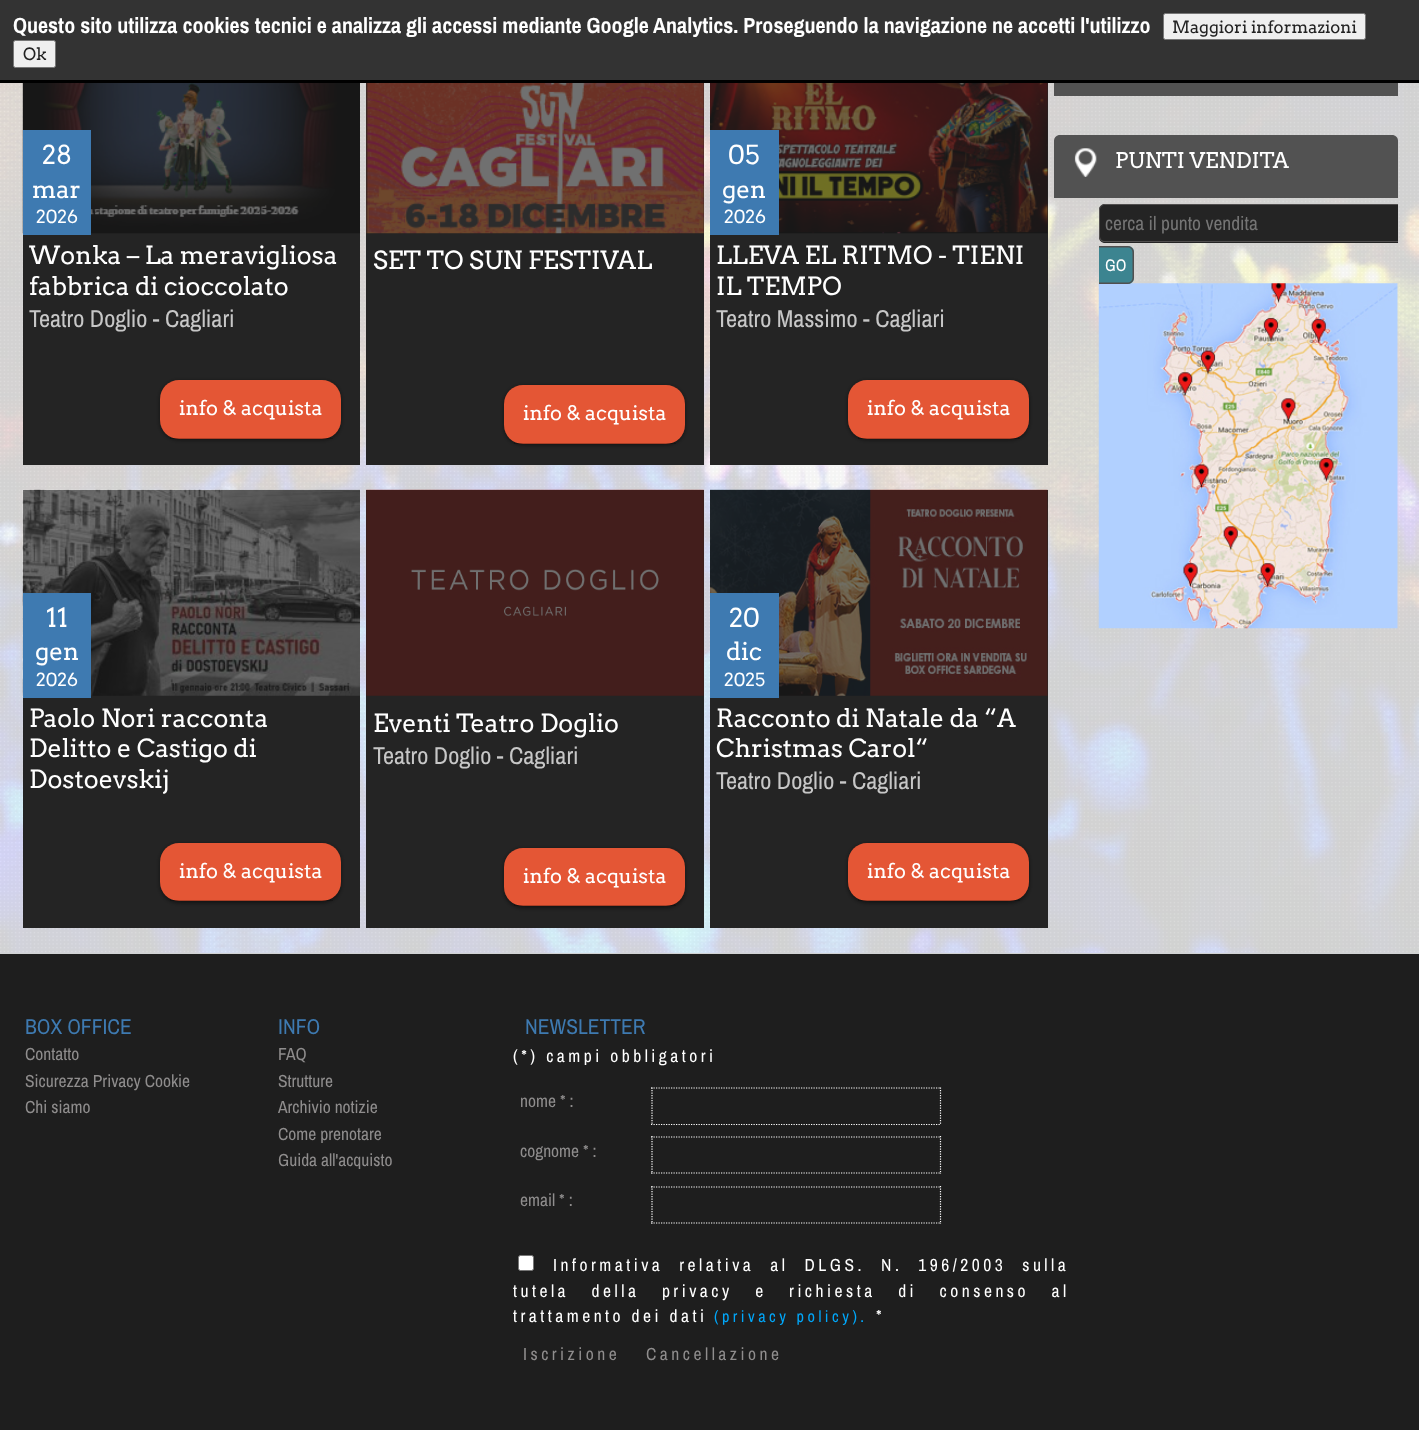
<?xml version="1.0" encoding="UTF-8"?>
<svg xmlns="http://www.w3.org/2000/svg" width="1419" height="1430">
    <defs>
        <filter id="blur1" x="-50%" y="-200%" width="200%" height="500%"><feGaussianBlur stdDeviation="2"/></filter>
    </defs>
    <rect width="100%" height="100%" fill="#FFFFFF"/>
    <rect x="0" y="0" width="1419" height="80" fill="#333333"/>
    <rect x="0" y="80" width="1419" height="3" fill="#000000"/>
    <text x="13" y="33" font-family="Archivo Narrow" font-size="22" font-weight="700" fill="#FFFFFF">Questo sito utilizza cookies tecnici e analizza gli accessi mediante Google Analytics. Proseguendo la navigazione ne accetti l'utilizzo</text>
    <rect x="1163.5" y="13.5" width="202" height="26" rx="2" fill="#EFEFEF" stroke="#767676"/>
    <text x="1172" y="33" font-family="Arvo" font-size="16.75" fill="#222222">Maggiori informazioni</text>
    <rect x="13.5" y="40.5" width="42" height="27" rx="2" fill="#EFEFEF" stroke="#767676"/>
    <text x="23" y="60" font-family="Arvo" font-size="16.75" fill="#222222">Ok</text>
    <image x="0" y="83" width="1419" height="870" href="img_01.png"/>
    <image x="0" y="83" width="1419" height="870" href="img_02.png"/>
    <rect x="1054" y="83" width="344" height="13" fill="#525252"/>
    <rect x="23" y="83" width="337" height="382" fill="#242424"/>
    <image x="22" y="83" width="338" height="151" href="img_03.png"/>
    <rect x="23" y="130" width="68" height="105" fill="#3E7AB1"/>
    <text x="42" y="164" font-family="Arvo" font-size="26" fill="#FFFFFF">28</text>
    <text x="32" y="198" font-family="Arvo" font-size="24.25" fill="#FFFFFF">mar</text>
    <text x="36" y="223" font-family="Arvo" font-size="18" fill="#FFFFFF">2026</text>
    <text font-family="Arvo" font-size="25" fill="#FFFFFF">
        <tspan x="29" y="264">Wonka – La meravigliosa</tspan>
        <tspan x="29" y="295">fabbrica di cioccolato</tspan>
    </text>
    <text x="29" y="327" font-family="Archivo Narrow" font-size="24.25" fill="#C7C7C7">Teatro Doglio - Cagliari</text>
    <rect x="160" y="381" width="181" height="59" rx="19" fill="#000000" fill-opacity="0.5" filter="url(#blur1)"/>
    <rect x="160" y="380" width="181" height="59" rx="19" fill="#E45635"/>
    <rect x="170" y="438" width="163" height="1" fill="#000000" fill-opacity="0.25"/>
    <text x="179" y="415" font-family="Arvo" font-size="20" fill="#FFFFFF">info &amp; acquista</text>
    <rect x="366" y="83" width="338" height="382" fill="#242424"/>
    <image x="366" y="83" width="338" height="151" href="img_04.png"/>
    <text x="373" y="269" font-family="Arvo" font-size="25" fill="#FFFFFF">SET TO SUN FESTIVAL</text>
    <rect x="504" y="386" width="181" height="59" rx="19" fill="#000000" fill-opacity="0.5" filter="url(#blur1)"/>
    <rect x="504" y="385" width="181" height="59" rx="19" fill="#E45635"/>
    <rect x="514" y="443" width="162" height="1" fill="#000000" fill-opacity="0.25"/>
    <text x="523" y="420" font-family="Arvo" font-size="20" fill="#FFFFFF">info &amp; acquista</text>
    <rect x="710" y="83" width="338" height="382" fill="#242424"/>
    <image x="710" y="83" width="338" height="151" href="img_05.png"/>
    <rect x="710" y="130" width="69" height="105" fill="#3E7AB1"/>
    <text x="728" y="164" font-family="Arvo" font-size="26" fill="#FFFFFF">05</text>
    <text x="722" y="198" font-family="Arvo" font-size="24.25" fill="#FFFFFF">gen</text>
    <text x="724" y="223" font-family="Arvo" font-size="18" fill="#FFFFFF">2026</text>
    <text font-family="Arvo" font-size="25" fill="#FFFFFF">
        <tspan x="716" y="264">LLEVA EL RITMO - TIENI</tspan>
        <tspan x="716" y="295">IL TEMPO</tspan>
    </text>
    <text x="716" y="327" font-family="Archivo Narrow" font-size="24.25" fill="#C7C7C7">Teatro Massimo - Cagliari</text>
    <rect x="848" y="381" width="181" height="59" rx="19" fill="#000000" fill-opacity="0.5" filter="url(#blur1)"/>
    <rect x="848" y="380" width="181" height="59" rx="19" fill="#E45635"/>
    <rect x="858" y="438" width="162" height="1" fill="#000000" fill-opacity="0.25"/>
    <text x="867" y="415" font-family="Arvo" font-size="20" fill="#FFFFFF">info &amp; acquista</text>
    <rect x="23" y="490" width="337" height="438" fill="#242424"/>
    <image x="22" y="489" width="338" height="207" href="img_06.png"/>
    <rect x="23" y="593" width="68" height="105" fill="#3E7AB1"/>
    <text x="46" y="627" font-family="Arvo" font-size="26" fill="#FFFFFF">11</text>
    <text x="35" y="660" font-family="Arvo" font-size="24.25" fill="#FFFFFF">gen</text>
    <text x="36" y="686" font-family="Arvo" font-size="18" fill="#FFFFFF">2026</text>
    <text font-family="Arvo" font-size="25" fill="#FFFFFF">
        <tspan x="29" y="727">Paolo Nori racconta</tspan>
        <tspan x="29" y="757">Delitto e Castigo di</tspan>
        <tspan x="29" y="788">Dostoevskij</tspan>
    </text>
    <rect x="160" y="844" width="181" height="59" rx="19" fill="#000000" fill-opacity="0.5" filter="url(#blur1)"/>
    <rect x="160" y="843" width="181" height="58" rx="19" fill="#E45635"/>
    <rect x="170" y="900" width="163" height="1" fill="#000000" fill-opacity="0.25"/>
    <text x="179" y="878" font-family="Arvo" font-size="20" fill="#FFFFFF">info &amp; acquista</text>
    <rect x="366" y="490" width="338" height="438" fill="#242424"/>
    <image x="366" y="489" width="338" height="207" href="img_07.png"/>
    <text x="373" y="732" font-family="Arvo" font-size="25" fill="#FFFFFF">Eventi Teatro Doglio</text>
    <text x="373" y="764" font-family="Archivo Narrow" font-size="24.25" fill="#C7C7C7">Teatro Doglio - Cagliari</text>
    <rect x="504" y="849" width="181" height="59" rx="19" fill="#000000" fill-opacity="0.5" filter="url(#blur1)"/>
    <rect x="504" y="848" width="181" height="58" rx="19" fill="#E45635"/>
    <rect x="514" y="905" width="162" height="1" fill="#000000" fill-opacity="0.25"/>
    <text x="523" y="883" font-family="Arvo" font-size="20" fill="#FFFFFF">info &amp; acquista</text>
    <rect x="710" y="490" width="338" height="438" fill="#242424"/>
    <image x="710" y="489" width="338" height="207" href="img_08.png"/>
    <rect x="710" y="593" width="69" height="105" fill="#3E7AB1"/>
    <text x="729" y="627" font-family="Arvo" font-size="26" fill="#FFFFFF">20</text>
    <text x="726" y="660" font-family="Arvo" font-size="24.25" fill="#FFFFFF">dic</text>
    <text x="724" y="686" font-family="Arvo" font-size="18" fill="#FFFFFF">2025</text>
    <text font-family="Arvo" font-size="25" fill="#FFFFFF">
        <tspan x="716" y="727">Racconto di Natale da “A</tspan>
        <tspan x="716" y="757">Christmas Carol“</tspan>
    </text>
    <text x="716" y="789" font-family="Archivo Narrow" font-size="24.25" fill="#C7C7C7">Teatro Doglio - Cagliari</text>
    <rect x="848" y="844" width="181" height="59" rx="19" fill="#000000" fill-opacity="0.5" filter="url(#blur1)"/>
    <rect x="848" y="843" width="181" height="58" rx="19" fill="#E45635"/>
    <rect x="858" y="900" width="162" height="1" fill="#000000" fill-opacity="0.25"/>
    <text x="867" y="878" font-family="Arvo" font-size="20" fill="#FFFFFF">info &amp; acquista</text>
    <path d="M 1060 135 H 1392 C 1395.5 135 1398 137.5 1398 141 V 198 H 1054 V 141 C 1054 137.5 1056.5 135 1060 135 Z" fill="#525252"/>
    <image x="1074" y="148" width="23" height="29" href="img_09.png"/>
    <text x="1115" y="168" font-family="Arvo" font-size="21.5" fill="#FFFFFF">PUNTI VENDITA</text>
    <path d="M 1105 204 H 1398 V 243 H 1105 C 1101.5 243 1099 240.5 1099 237 V 210 C 1099 206.5 1101.5 204 1105 204 Z" fill="#242424"/>
    <path d="M 1105 204 H 1398 V 242 H 1105 C 1102 242 1099 240 1099 236 V 210 C 1099 207 1102 204 1105 204 Z M 1105 205 H 1398 V 241 H 1105 C 1102 241 1100 239 1100 236 V 210 C 1100 207 1102 205 1105 205 Z" fill="#514F4F" fill-rule="evenodd"/>
    <text x="1105" y="230" font-family="Archivo Narrow" font-size="19.5" fill="#757575">cerca il punto vendita</text>
    <image x="1098" y="283" width="300" height="346" href="img_10.png"/>
    <path d="M 1099 246 H 1128 C 1131.5 246 1134 248.5 1134 252 V 278 C 1134 281.5 1131.5 284 1128 284 H 1099 Z" fill="#3C8490"/>
    <path d="M 1099 246 H 1127.5 C 1131 246 1134 249 1134 252.5 V 277.5 C 1134 281 1131 284 1127.5 284 H 1099 Z M 1099 247.5 H 1127.5 C 1130.5 247.5 1132.5 249.5 1132.5 252.5 V 277.5 C 1132.5 280.5 1130.5 282.5 1127.5 282.5 H 1099 Z" fill="#514F4F" fill-rule="evenodd"/>
    <text x="1105" y="271" font-family="Archivo Narrow" font-size="16.75" fill="#FFFFFF">GO</text>
    <rect x="0" y="954" width="1419" height="476" fill="#1E1E1E"/>
    <rect x="0" y="953" width="1419" height="1" fill="#D1D3D4"/>
    <text x="25" y="1034" font-family="Archivo Narrow" font-size="21.5" fill="#3E7AB1">BOX OFFICE</text>
    <text font-family="Archivo Narrow" font-size="17.5" fill="#8F8D8D">
        <tspan x="25" y="1060">Contatto</tspan>
        <tspan x="25" y="1087">Sicurezza Privacy Cookie</tspan>
        <tspan x="25" y="1113">Chi siamo</tspan>
    </text>
    <text x="278" y="1034" font-family="Archivo Narrow" font-size="21.5" fill="#3E7AB1">INFO</text>
    <text font-family="Archivo Narrow" font-size="17.5" fill="#8F8D8D">
        <tspan x="278" y="1060">FAQ</tspan>
        <tspan x="278" y="1087">Strutture</tspan>
        <tspan x="278" y="1113">Archivio notizie</tspan>
        <tspan x="278" y="1140">Come prenotare</tspan>
        <tspan x="278" y="1166">Guida all'acquisto</tspan>
    </text>
    <text x="525" y="1034" font-family="Archivo Narrow" font-size="21.5" fill="#3E7AB1">NEWSLETTER</text>
    <text x="513" y="1062" font-family="Archivo Narrow" font-size="17.5" letter-spacing="3.5" fill="#FFFFFF">(*) campi obbligatori</text>
    <text x="520" y="1107" font-family="Archivo Narrow" font-size="17.5" fill="#8F8D8D">nome * :</text>
    <path d="M 651 1088 H 941" fill="none" stroke="#FFFFFF" stroke-width="1.2" stroke-dasharray="1.25 1.25"/>
    <path d="M 940.5 1087.5 V 1125" fill="none" stroke="#FFFFFF" stroke-width="1.2" stroke-dasharray="1.25 1.25"/>
    <path d="M 651 1124.5 H 941" fill="none" stroke="#FFFFFF" stroke-width="1.2" stroke-dasharray="1.25 1.25"/>
    <path d="M 652 1087.5 V 1125" fill="none" stroke="#FFFFFF" stroke-width="1.2" stroke-dasharray="1.25 1.25"/>
    <text x="520" y="1157" font-family="Archivo Narrow" font-size="17.5" fill="#8F8D8D">cognome * :</text>
    <path d="M 651 1137 H 941" fill="none" stroke="#FFFFFF" stroke-width="1.2" stroke-dasharray="1.25 1.25"/>
    <path d="M 940.5 1136 V 1174" fill="none" stroke="#FFFFFF" stroke-width="1.2" stroke-dasharray="1.25 1.25"/>
    <path d="M 651 1173 H 941" fill="none" stroke="#FFFFFF" stroke-width="1.2" stroke-dasharray="1.25 1.25"/>
    <path d="M 652 1136 V 1174" fill="none" stroke="#FFFFFF" stroke-width="1.2" stroke-dasharray="1.25 1.25"/>
    <text x="520" y="1206" font-family="Archivo Narrow" font-size="17.5" fill="#8F8D8D">email * :</text>
    <path d="M 651 1187 H 941" fill="none" stroke="#FFFFFF" stroke-width="1.2" stroke-dasharray="1.25 1.25"/>
    <path d="M 940.5 1186 V 1224" fill="none" stroke="#FFFFFF" stroke-width="1.2" stroke-dasharray="1.25 1.25"/>
    <path d="M 651 1223 H 941" fill="none" stroke="#FFFFFF" stroke-width="1.2" stroke-dasharray="1.25 1.25"/>
    <path d="M 652 1186 V 1224" fill="none" stroke="#FFFFFF" stroke-width="1.2" stroke-dasharray="1.25 1.25"/>
    <rect x="518.5" y="1255.5" width="15" height="15" rx="2" fill="#FFFFFF" stroke="#767676"/>
    <text x="553" y="1271" word-spacing="8.5" font-family="Archivo Narrow" font-size="17.5" letter-spacing="3.5" fill="#FFFFFF">Informativa relativa al DLGS. N. 196/2003 sulla</text>
    <text font-family="Archivo Narrow" font-size="17.5" letter-spacing="3.5" fill="#FFFFFF">
        <tspan x="513" y="1297" word-spacing="15">tutela della privacy e richiesta di consenso al</tspan>
        <tspan x="513" y="1322">trattamento dei dati</tspan>
    </text>
    <text x="714" y="1322" font-family="Archivo Narrow" font-size="16.25" letter-spacing="3.5" fill="#00A7FA">(privacy policy).</text>
    <text x="876" y="1322" font-family="Archivo Narrow" font-size="17.5" letter-spacing="3.5" fill="#FFFFFF">*</text>
    <text x="523" y="1360" font-family="Archivo Narrow" font-size="17.5" letter-spacing="3.5" fill="#8F8D8D">Iscrizione</text>
    <text x="646" y="1360" font-family="Archivo Narrow" font-size="17.5" letter-spacing="3.5" fill="#8F8D8D">Cancellazione</text>
</svg>
